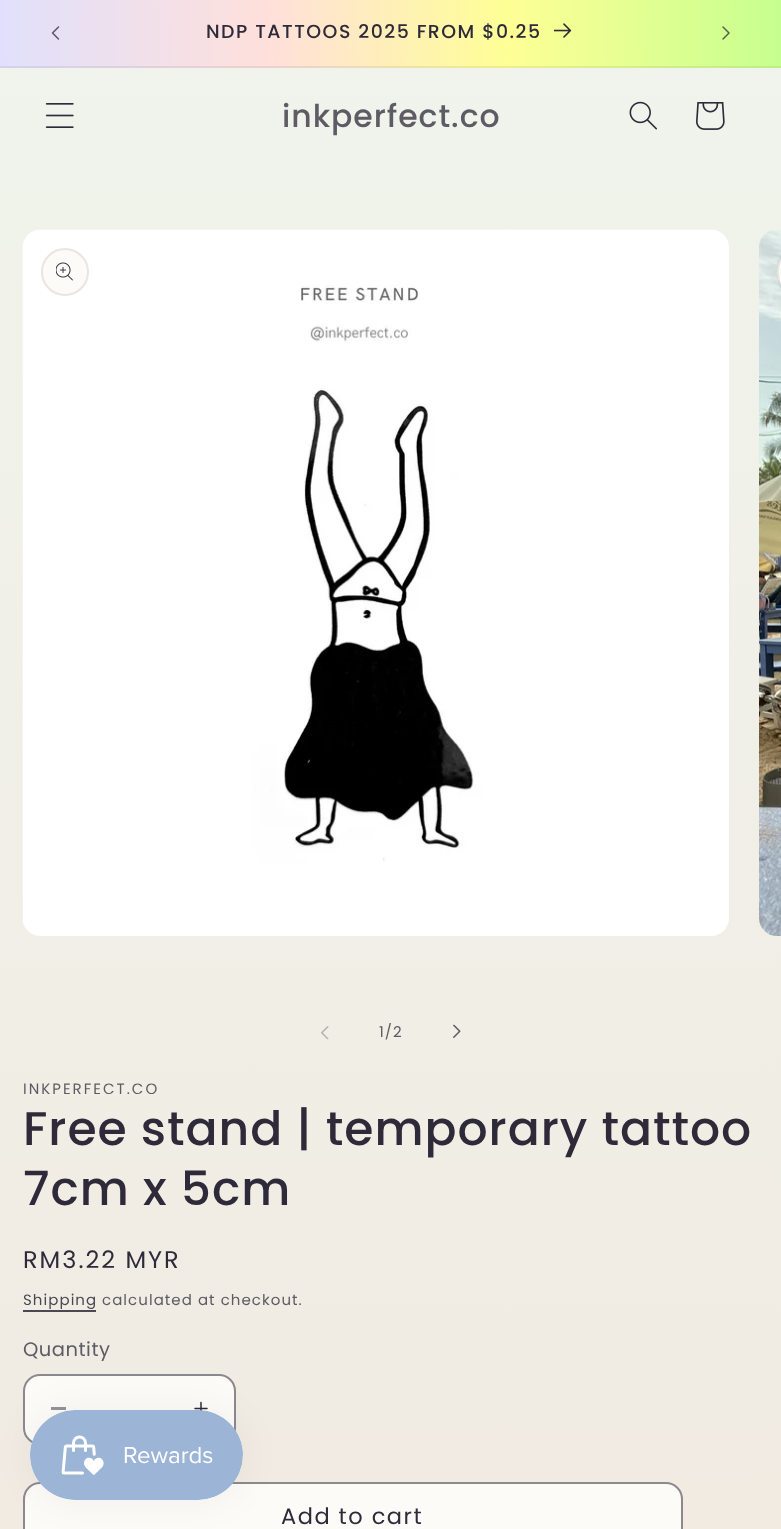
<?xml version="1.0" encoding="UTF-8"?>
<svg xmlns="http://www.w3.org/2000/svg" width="781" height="1529">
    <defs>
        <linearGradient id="g1" gradientUnits="userSpaceOnUse" x1="391" y1="0" x2="391" y2="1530"><stop offset="0" stop-color="#F0F4EC"/><stop offset="1" stop-color="#F1EBE2"/></linearGradient>
        <linearGradient id="g2" gradientUnits="userSpaceOnUse" x1="-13" y1="772" x2="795" y2="758"><stop offset="0" stop-color="#DEE0FF"/><stop offset="0.37" stop-color="#FFE0DA"/><stop offset="0.66" stop-color="#FEFF95"/><stop offset="1" stop-color="#C6FF8F"/></linearGradient>
        <linearGradient id="g3" gradientUnits="userSpaceOnUse" x1="-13" y1="772" x2="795" y2="758"><stop offset="0" stop-color="#D0D1EF"/><stop offset="0.37" stop-color="#EED1CD"/><stop offset="0.66" stop-color="#EDEE8E"/><stop offset="1" stop-color="#BAEE88"/></linearGradient>
        <filter id="blur1" x="-50%" y="-200%" width="200%" height="500%"><feGaussianBlur stdDeviation="19"/></filter>
    </defs>
    <rect width="100%" height="100%" fill="#FFFFFF"/>
    <rect x="0" y="68" width="781" height="123" fill="url(#g1)"/>
    <rect x="0" y="0" width="781" height="66" fill="url(#g2)"/>
    <rect x="0" y="66" width="781" height="2" fill="url(#g3)"/>
    <image x="51" y="26" width="9" height="14" href="img_01.png"/>
    <text x="206" y="38" font-family="Poppins" font-size="18.9" font-weight="500" letter-spacing="1.5" fill="#2E2A39">NDP TATTOOS 2025 FROM $0.25</text>
    <image x="554" y="23" width="18" height="15" href="img_02.png"/>
    <image x="722" y="26" width="8" height="14" href="img_03.png"/>
    <image x="45" y="103" width="29" height="25" href="img_04.png"/>
    <text x="282" y="127" font-family="Poppins" font-size="31.5" font-weight="500" letter-spacing="0.95" fill="#5F5B64">inkperfect.co</text>
    <image x="629" y="101" width="28" height="29" href="img_05.png"/>
    <image x="696" y="102" width="29" height="28" href="img_06.png"/>
    <rect x="0" y="191" width="781" height="1338" fill="url(#g1)"/>
    <image x="22" y="229" width="707" height="707" href="img_07.png"/>
    <circle cx="65" cy="272" r="24" fill="#FDFBF7"/>
    <circle cx="65" cy="272" r="23" fill="none" stroke="#2E2A39" stroke-opacity="0.1" stroke-width="2"/>
    <image x="56" y="262" width="17" height="19" href="img_08.png"/>
    <image x="759" y="230" width="22" height="706" href="img_09.png"/>
    <path d="M 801 248 H 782 V 296 H 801 C 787.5 296 777 285.5 777 272 C 777 258.5 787.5 248 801 248 Z" fill="#FDFBF7"/>
    <rect x="778" y="249" width="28" height="46" rx="23" fill="none" stroke="#2E2A39" stroke-opacity="0.1" stroke-width="2"/>
    <image x="321" y="1026" width="8" height="14" href="img_10.png"/>
    <text x="379" y="1037" font-family="Poppins" font-size="15" letter-spacing="1.05" fill="#5F5B64">1/2</text>
    <image x="453" y="1024" width="8" height="14" href="img_11.png"/>
    <text x="23" y="1094" font-family="Poppins" font-size="15" letter-spacing="2" fill="#5F5B64">INKPERFECT.CO</text>
    <text font-family="Poppins" font-size="47.25" font-weight="500" letter-spacing="0.95" fill="#2E2A39">
        <tspan x="23" y="1145">Free stand | temporary tattoo</tspan>
        <tspan x="23" y="1205">7cm x 5cm</tspan>
    </text>
    <text x="23" y="1268" font-family="Poppins" font-size="24" letter-spacing="2" fill="#2E2A39">RM3.22 MYR</text>
    <text x="23" y="1305" font-family="Poppins" font-size="15" letter-spacing="1.05" fill="#4B4753">Shipping</text>
    <rect x="23" y="1310" width="73" height="2" fill="#4B4753"/>
    <text x="102" y="1305" font-family="Poppins" font-size="15" letter-spacing="1.05" fill="#5F5B64">calculated at checkout.</text>
    <text x="23" y="1356" font-family="Poppins" font-size="19.5" letter-spacing="0.5" fill="#5F5B64">Quantity</text>
    <rect x="23" y="1374" width="213" height="71" rx="17" fill="#FDFBF7"/>
    <rect x="51" y="1407" width="15" height="3" fill="#969398"/>
    <image x="194" y="1401" width="14" height="10" href="img_12.png"/>
    <rect x="24" y="1375" width="211" height="69" rx="16" fill="none" stroke="#2E2A39" stroke-opacity="0.55" stroke-width="2"/>
    <rect x="23" y="1482" width="660" height="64" rx="17" fill="#FDFBF7"/>
    <rect x="24" y="1483" width="658" height="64" rx="16" fill="none" stroke="#FDFBF7" stroke-width="2"/>
    <rect x="24" y="1483" width="658" height="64" rx="16" fill="none" stroke="#2E2A39" stroke-opacity="0.55" stroke-width="2"/>
    <text x="281" y="1524" font-family="Poppins" font-size="22.5" letter-spacing="1.5" fill="#2E2A39">Add to cart</text>
    <rect x="30" y="1410" width="213" height="90" rx="45" fill="#000000" fill-opacity="0.05" filter="url(#blur1)"/>
    <image x="30" y="1410" width="213" height="90" href="img_13.png"/>
</svg>
